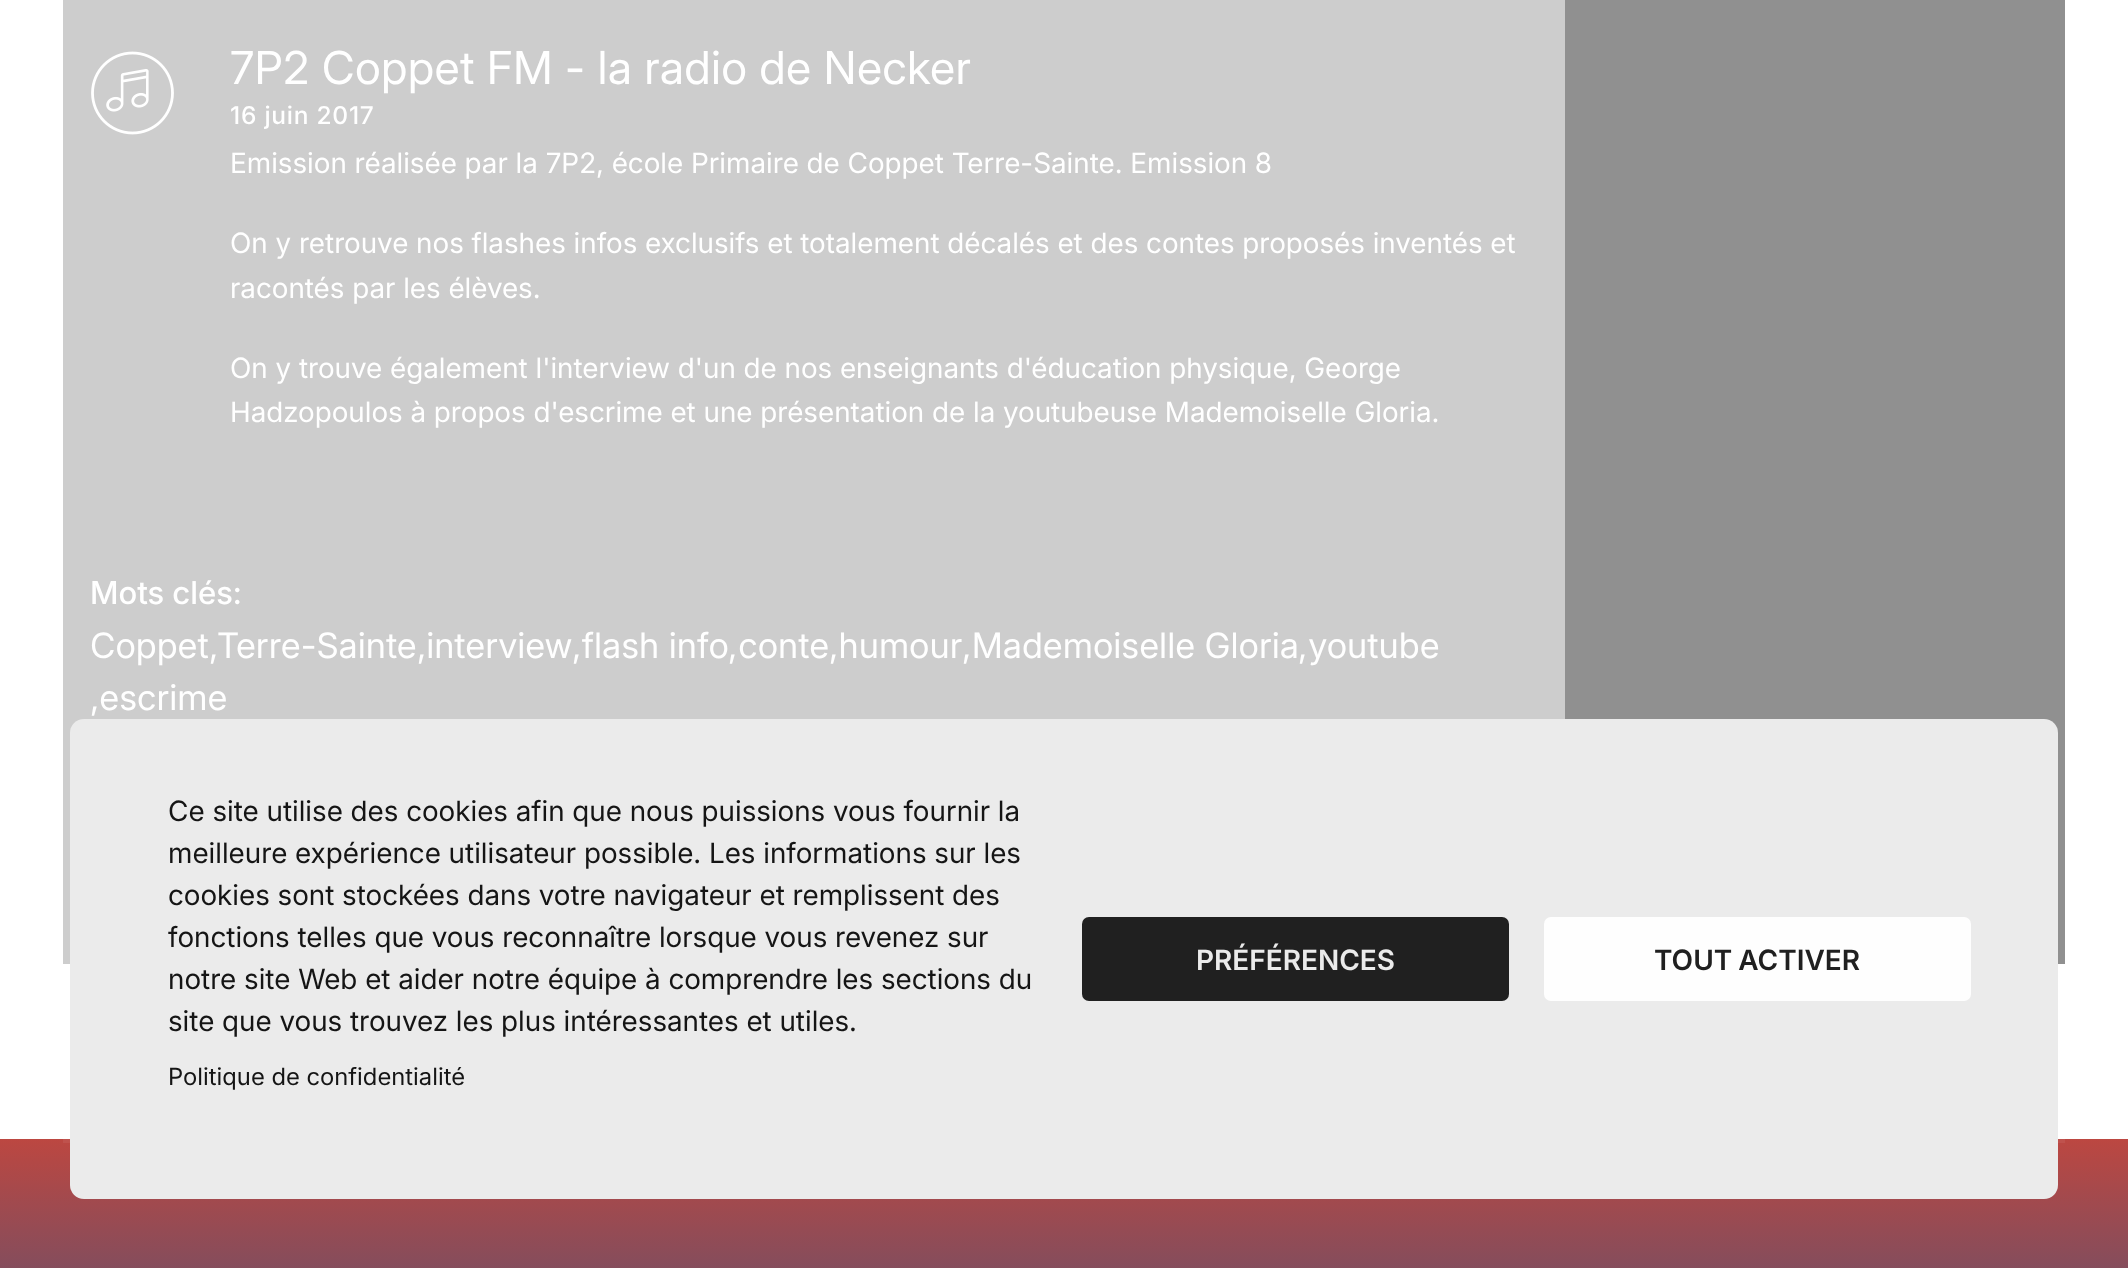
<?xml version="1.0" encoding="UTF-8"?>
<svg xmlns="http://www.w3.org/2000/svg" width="2128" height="1268">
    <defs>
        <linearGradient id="g1" gradientUnits="userSpaceOnUse" x1="1064" y1="1139" x2="1064" y2="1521"><stop offset="0" stop-color="#BC4741"/><stop offset="1" stop-color="#195891"/></linearGradient>
    </defs>
    <rect width="100%" height="100%" fill="#FFFFFF"/>
    <rect x="63" y="0" width="1502" height="964" fill="#CDCDCD"/>
    <image x="91" y="51" width="83" height="84" href="img_01.png"/>
    <text x="230" y="84" font-family="Inter" font-size="45.5" letter-spacing="0.3" fill="#FFFFFF">7P2 Coppet FM - la radio de Necker</text>
    <text x="230" y="124" font-family="Inter" font-size="24.5" font-weight="500" letter-spacing="0.75" fill="#FFFFFF">16 juin 2017</text>
    <text x="230" y="173" font-family="'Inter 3'" font-size="28" fill="#FFFFFF">Emission réalisée par la 7P2, école Primaire de Coppet Terre-Sainte. Emission 8</text>
    <text font-family="'Inter 3'" font-size="28" fill="#FFFFFF">
        <tspan x="230" y="253">On y retrouve nos flashes infos exclusifs et totalement décalés et des contes proposés inventés et</tspan>
        <tspan x="230" y="298">racontés par les élèves.</tspan>
    </text>
    <text font-family="'Inter 3'" font-size="28" fill="#FFFFFF">
        <tspan x="230" y="378">On y trouve également l'interview d'un de nos enseignants d'éducation physique, George</tspan>
        <tspan x="230" y="422">Hadzopoulos à propos d'escrime et une présentation de la youtubeuse Mademoiselle Gloria.</tspan>
    </text>
    <text x="90" y="604" font-family="'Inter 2'" font-size="31.5" font-weight="500" fill="#FFFFFF">Mots clés:</text>
    <text x="90" y="658" font-family="'Inter 2'" font-size="35" fill="#FFFFFF">Coppet</text>
    <text x="209" y="658" font-family="'Inter 2'" font-size="35" fill="#FFFFFF">,</text>
    <text x="417" y="658" font-family="'Inter 2'" font-size="35" fill="#FFFFFF">,</text>
    <text x="572" y="658" font-family="'Inter 2'" font-size="35" fill="#FFFFFF">,</text>
    <text x="728" y="658" font-family="'Inter 2'" font-size="35" fill="#FFFFFF">,</text>
    <text x="829" y="658" font-family="'Inter 2'" font-size="35" fill="#FFFFFF">,</text>
    <text x="962" y="658" font-family="'Inter 2'" font-size="35" fill="#FFFFFF">,</text>
    <text x="1298" y="658" font-family="'Inter 2'" font-size="35" fill="#FFFFFF">,</text>
    <text x="217" y="658" font-family="'Inter 2'" font-size="35" fill="#FFFFFF">Terre-Sainte interview flash info conte humour Mademoiselle Gloria youtube</text>
    <text x="90" y="710" font-family="'Inter 2'" font-size="35" fill="#FFFFFF">,escrime</text>
    <rect x="1565" y="0" width="500" height="964" fill="#909090"/>
    <rect x="0" y="1139" width="2128" height="129" fill="url(#g1)"/>
    <rect x="63" y="1139" width="2002" height="4" fill="#BF524D"/>
    <rect x="70" y="719" width="1988" height="480" rx="14" fill="#EBEBEB"/>
    <text font-family="'Inter 3'" font-size="28" fill="#151515">
        <tspan x="168" y="821">Ce site utilise des cookies afin que nous puissions vous fournir la</tspan>
        <tspan x="168" y="863">meilleure expérience utilisateur possible. Les informations sur les</tspan>
        <tspan x="168" y="905">cookies sont stockées dans votre navigateur et remplissent des</tspan>
        <tspan x="168" y="947">fonctions telles que vous reconnaître lorsque vous revenez sur</tspan>
        <tspan x="168" y="989">notre site Web et aider notre équipe à comprendre les sections du</tspan>
        <tspan x="168" y="1031">site que vous trouvez les plus intéressantes et utiles.</tspan>
    </text>
    <text x="168" y="1085" font-family="'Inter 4'" font-size="23.75" fill="#151515">Politique de confidentialité</text>
    <rect x="1082" y="917" width="427" height="84" rx="7" fill="#202020"/>
    <text x="1196" y="970" font-family="Inter" font-size="28" font-weight="600" fill="#EBEBEB">PRÉFÉRENCES</text>
    <rect x="1544" y="917" width="427" height="84" rx="7" fill="#FEFEFE"/>
    <text x="1654" y="970" word-spacing="-1" font-family="Inter" font-size="28" font-weight="600" fill="#202020">TOUT ACTIVER</text>
</svg>
